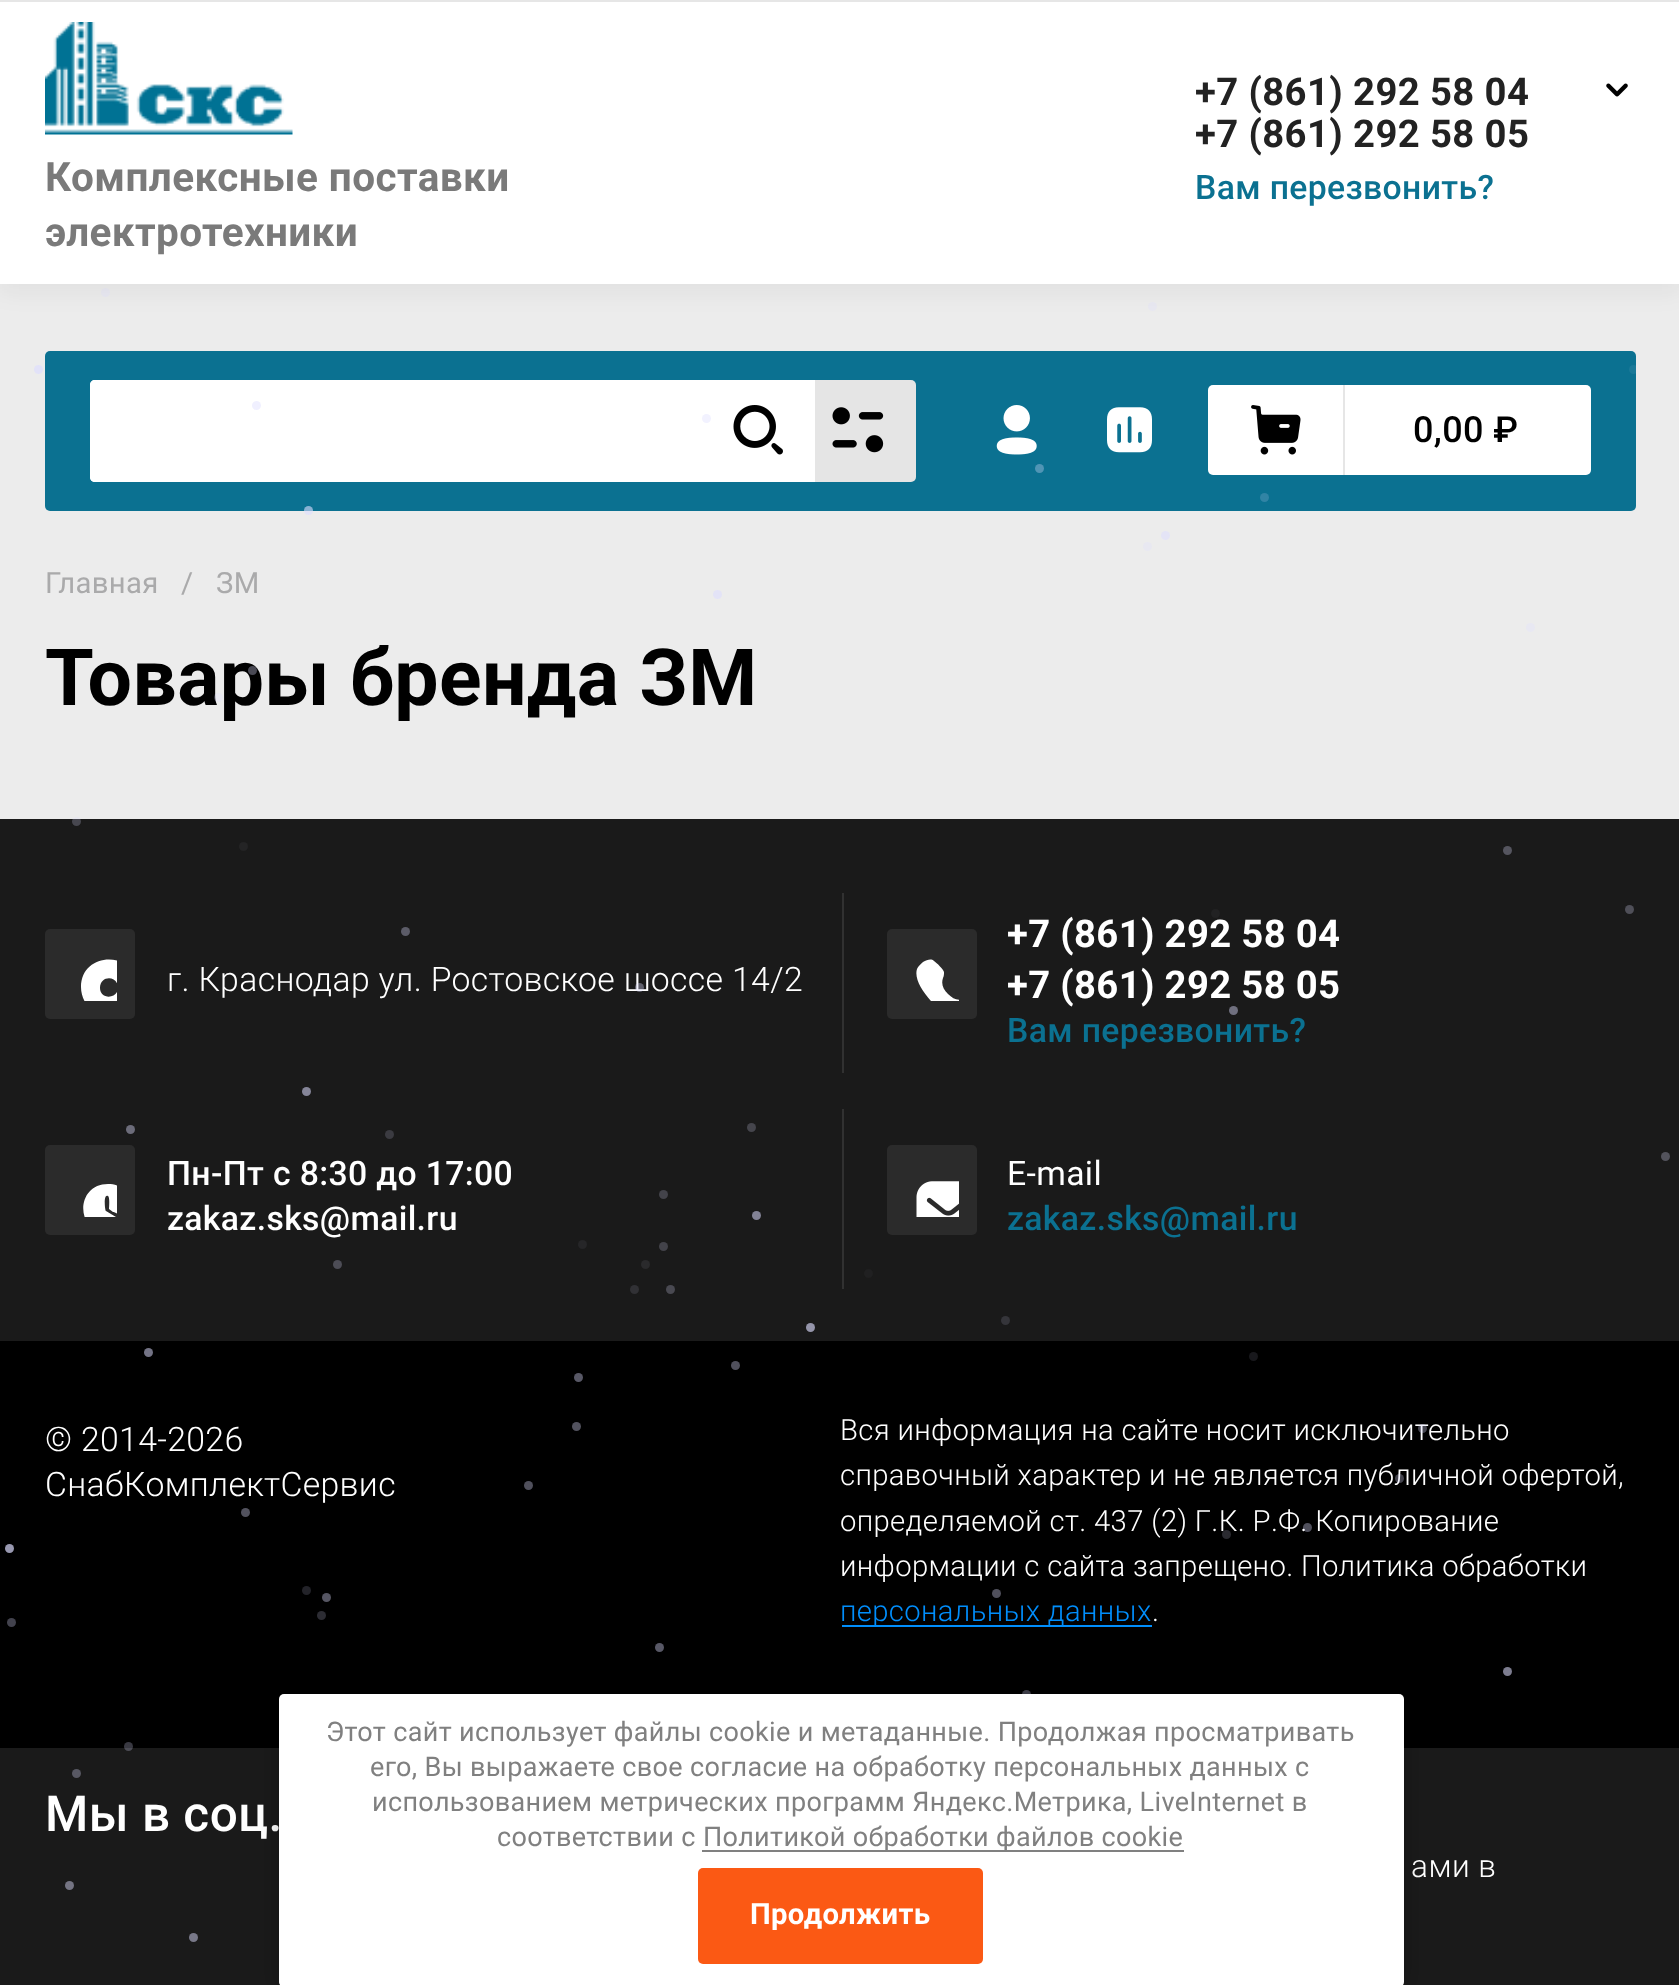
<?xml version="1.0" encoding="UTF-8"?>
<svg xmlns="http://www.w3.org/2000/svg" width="1679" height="1985">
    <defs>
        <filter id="blur1" x="-50%" y="-200%" width="200%" height="500%"><feGaussianBlur stdDeviation="11"/></filter>
        <clipPath id="clip1"><rect x="63" y="947" width="54" height="54"/></clipPath>
        <clipPath id="clip2"><rect x="905" y="947" width="54" height="54"/></clipPath>
        <clipPath id="clip3"><rect x="63" y="1163" width="54" height="54"/></clipPath>
    </defs>
    <rect width="100%" height="100%" fill="#ECECEC"/>
    <circle cx="105.5" cy="292.5" r="4.5" fill="#E8E8F2"/>
    <circle cx="1152.5" cy="306.5" r="4.5" fill="#E8E8F1"/>
    <rect x="0" y="-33" width="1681" height="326" fill="#000000" fill-opacity="0.05" filter="url(#blur1)"/>
    <rect x="0" y="2" width="1679" height="282" fill="#FFFFFF"/>
    <rect x="0" y="0" width="1679" height="2" fill="#E6E6E6"/>
    <image x="45" y="22" width="248" height="113" href="img_01.png"/>
    <text font-family="Roboto" font-size="40.5" font-weight="700" letter-spacing="0.4" fill="#7A7A7A">
        <tspan x="45" y="191">Комплексные поставки</tspan>
        <tspan x="45" y="246">электротехники</tspan>
    </text>
    <text font-family="Roboto" font-size="38.25" font-weight="700" letter-spacing="0.4" fill="#222222">
        <tspan x="1195" y="105">+7 (861) 292 58 04</tspan>
        <tspan x="1195" y="147">+7 (861) 292 58 05</tspan>
    </text>
    <text x="1195" y="199" font-family="Roboto" font-size="33.75" font-weight="500" letter-spacing="0.35" fill="#0B7191">Вам перезвонить?</text>
    <image x="1606" y="83" width="22" height="14" href="img_02.png"/>
    <rect x="45" y="351" width="1591" height="160" rx="5" fill="#0B7191"/>
    <rect x="90" y="380" width="826" height="102" rx="5" fill="#FFFFFF"/>
    <path d="M 95 380 H 702 V 482 H 95 C 92 482 90 480 90 477 V 385 C 90 382 92 380 95 380 Z" fill="#FFFFFF"/>
    <image x="733" y="405" width="50" height="50" href="img_03.png"/>
    <path d="M 815 380 H 911 C 914 380 916 382 916 385 V 477 C 916 480 914 482 911 482 H 815 Z" fill="#000000" fill-opacity="0.1"/>
    <image x="832" y="407" width="52" height="46" href="img_04.png"/>
    <image x="996" y="405" width="41" height="50" href="img_05.png"/>
    <image x="1107" y="407" width="45" height="46" href="img_06.png"/>
    <rect x="1208" y="385" width="383" height="90" rx="5" fill="#FFFFFF"/>
    <image x="1251" y="405" width="50" height="50" href="img_07.png"/>
    <rect x="1343" y="385" width="2" height="90" fill="#E6E6E6"/>
    <text x="1413" y="442" font-family="Roboto" font-size="36" font-weight="500" letter-spacing="0.35" fill="#000000">0,00 ₽</text>
    <text x="45" y="593" font-family="Roboto" font-size="29.25" letter-spacing="0.35" fill="#AAAAAB">Главная</text>
    <text x="181" y="593" font-family="Roboto" font-size="29.25" letter-spacing="0.35" fill="#AAAAAB">/</text>
    <text x="216" y="593" font-family="Roboto" font-size="29.25" letter-spacing="0.35" fill="#AAAAAB">ЗМ</text>
    <text x="45" y="705" font-family="Roboto" font-size="78.75" font-weight="700" letter-spacing="0.35" fill="#000000">Товары бренда ЗМ</text>
    <rect x="0" y="1341" width="1679" height="407" fill="#000000"/>
    <rect x="0" y="819" width="1679" height="522" fill="#1A1A1A"/>
    <rect x="45" y="929" width="90" height="90" rx="5" fill="#2B2B2B"/>
    <g clip-path="url(#clip1)">
        <path d="M 81 987 C 81 955 125 950 135 977 V 999 C 132 1007 126 1014 119 1019 H 99 C 90 1011 81 1000 81 987 Z M 100 988 C 100 975 118 975 118 988 C 118 999 100 1000 100 988 Z" fill="#FFFFFF" fill-rule="evenodd"/>
    </g>
    <text x="167" y="991" font-family="Roboto" font-size="33.75" font-weight="300" letter-spacing="0.35" fill="#FFFFFF">г. Краснодар ул. Ростовское шоссе 14/2</text>
    <rect x="842" y="893" width="2" height="180" fill="#313131"/>
    <rect x="887" y="929" width="90" height="90" rx="5" fill="#2B2B2B"/>
    <g clip-path="url(#clip2)">
        <path d="M 948 994 C 953 999 958 1001 964 999 C 966 998 968 998 970 998 C 973 999 975 1002 977 1004 C 977 1013 980 1019 969 1019 H 951 C 938 1010 912 985 917 969 C 918 966 921 964 923 962 C 927 960 931 958 934 961 C 937 963 943 969 944 972 C 944 974 944 976 943 978 C 941 984 943 989 948 994 Z" fill="#FFFFFF"/>
    </g>
    <text font-family="Roboto" font-size="38.25" font-weight="700" letter-spacing="0.35" fill="#FFFFFF">
        <tspan x="1007" y="947">+7 (861) 292 58 04</tspan>
        <tspan x="1007" y="998">+7 (861) 292 58 05</tspan>
    </text>
    <text x="1007" y="1042" font-family="Roboto" font-size="33.75" font-weight="500" letter-spacing="0.35" fill="#0B7191">Вам перезвонить?</text>
    <rect x="45" y="1145" width="90" height="90" rx="5" fill="#2B2B2B"/>
    <g clip-path="url(#clip3)">
        <path d="M 108 1233 C 75 1233 75 1184 108 1184 C 141 1184 141 1233 108 1233 Z M 116 1217 C 117 1218 118 1218 118 1217 C 121 1215 115 1212 113 1212 L 109 1209 C 109 1207 110 1197 108 1196 C 103 1193 105 1211 106 1211 Z" fill="#FFFFFF" fill-rule="evenodd"/>
    </g>
    <text font-family="Roboto" font-size="33.75" font-weight="500" letter-spacing="0.35" fill="#FFFFFF">
        <tspan x="167" y="1185">Пн-Пт с 8:30 до 17:00</tspan>
        <tspan x="167" y="1230">zakaz.sks@mail.ru</tspan>
    </text>
    <rect x="842" y="1109" width="2" height="180" fill="#313131"/>
    <rect x="887" y="1145" width="90" height="90" rx="5" fill="#2B2B2B"/>
    <image x="916" y="1181" width="43" height="36" href="img_08.png"/>
    <text x="1007" y="1185" font-family="Roboto" font-size="33.75" letter-spacing="0.35" fill="#FFFFFF">Е-mail</text>
    <text x="1007" y="1230" font-family="Roboto" font-size="33.75" font-weight="500" letter-spacing="0.35" fill="#0B7191">zakaz.sks@mail.ru</text>
    <text font-family="Roboto" font-size="33.75" font-weight="300" letter-spacing="0.35" fill="#FFFFFF">
        <tspan x="45" y="1451">© 2014-2026</tspan>
        <tspan x="45" y="1496">СнабКомплектСервис</tspan>
    </text>
    <text font-family="Roboto" font-size="29.25" font-weight="300" letter-spacing="0.35" fill="#FFFFFF">
        <tspan x="840" y="1440">Вся информация на сайте носит исключительно</tspan>
        <tspan x="840" y="1485">справочный характер и не является публичной офертой,</tspan>
        <tspan x="840" y="1531">определяемой ст. 437 (2) Г.К. Р.Ф. Копирование</tspan>
        <tspan x="840" y="1576">информации с сайта запрещено. Политика обработки</tspan>
    </text>
    <rect x="842" y="1625" width="310" height="2" fill="#008EFC"/>
    <text x="840" y="1621" font-family="Roboto" font-size="29.25" font-weight="300" letter-spacing="0.35" fill="#008EFC">персональных данных</text>
    <text x="1152" y="1621" font-family="Roboto" font-size="29.25" font-weight="300" letter-spacing="0.35" fill="#FFFFFF">.</text>
    <rect x="0" y="1748" width="1679" height="237" fill="#1A1A1A"/>
    <text x="45" y="1831" font-family="Roboto" font-size="49.5" font-weight="500" letter-spacing="0.5" fill="#FFFFFF">Мы в соц.</text>
    <text x="1411" y="1877" font-family="Roboto" font-size="31.5" font-weight="300" letter-spacing="0.5" fill="#FFFFFF">ами в</text>
    <circle cx="38.5" cy="369.5" r="4.5" fill="#E2E2F8"/>
    <circle cx="1633.5" cy="369.5" r="4.5" fill="#DDDDFF" fill-opacity="0.07"/>
    <circle cx="256.5" cy="405.5" r="4.5" fill="#F0F0FF"/>
    <circle cx="706.5" cy="418.5" r="4.5" fill="#F2F2FF"/>
    <circle cx="1039.5" cy="468.5" r="4.5" fill="#5095B5"/>
    <circle cx="1264.5" cy="497.5" r="4.5" fill="#3184A5"/>
    <circle cx="308.5" cy="510.5" r="4.5" fill="#DDDDFF" fill-opacity="0.6"/>
    <circle cx="1165.5" cy="535.5" r="4.5" fill="#E4E4F6"/>
    <circle cx="1147.5" cy="546.5" r="4.5" fill="#E8E8F1"/>
    <circle cx="717.5" cy="594.5" r="4.5" fill="#E3E3F7"/>
    <circle cx="1530.5" cy="627.5" r="4.5" fill="#E8E8F2"/>
    <circle cx="252.5" cy="670.5" r="4.5" fill="#DDDDFF" fill-opacity="0.33"/>
    <circle cx="218.5" cy="697.5" r="4.5" fill="#DDDDFF" fill-opacity="0.26"/>
    <circle cx="76.5" cy="821.5" r="4.5" fill="#DDDDFF" fill-opacity="0.23"/>
    <circle cx="243.5" cy="846.5" r="4.5" fill="#242425"/>
    <circle cx="1507.5" cy="850.5" r="4.5" fill="#55555F"/>
    <circle cx="1215.5" cy="913.5" r="4.5" fill="#222223"/>
    <circle cx="1629.5" cy="909.5" r="4.5" fill="#4F4F58"/>
    <circle cx="405.5" cy="931.5" r="4.5" fill="#5C5C68"/>
    <circle cx="639.5" cy="987.5" r="4.5" fill="#DDDDFF" fill-opacity="0.36"/>
    <circle cx="1233.5" cy="1010.5" r="4.5" fill="#70707F"/>
    <circle cx="306.5" cy="1091.5" r="4.5" fill="#858598"/>
    <circle cx="130.5" cy="1129.5" r="4.5" fill="#6C6C7A"/>
    <circle cx="389.5" cy="1134.5" r="4.5" fill="#3B3B41"/>
    <circle cx="751.5" cy="1127.5" r="4.5" fill="#45454C"/>
    <circle cx="1665.5" cy="1156.5" r="4.5" fill="#53535C"/>
    <circle cx="663.5" cy="1194.5" r="4.5" fill="#43434A"/>
    <circle cx="756.5" cy="1215.5" r="4.5" fill="#838396"/>
    <circle cx="582.5" cy="1244.5" r="4.5" fill="#262628"/>
    <circle cx="663.5" cy="1246.5" r="4.5" fill="#43434A"/>
    <circle cx="337.5" cy="1264.5" r="4.5" fill="#4D4D56"/>
    <circle cx="645.5" cy="1264.5" r="4.5" fill="#2A2A2C"/>
    <circle cx="868.5" cy="1273.5" r="4.5" fill="#202021"/>
    <circle cx="634.5" cy="1289.5" r="4.5" fill="#313135"/>
    <circle cx="670.5" cy="1289.5" r="4.5" fill="#494951"/>
    <circle cx="1005.5" cy="1320.5" r="4.5" fill="#35353A"/>
    <circle cx="810.5" cy="1327.5" r="4.5" fill="#9595AA"/>
    <circle cx="148.5" cy="1352.5" r="4.5" fill="#737385"/>
    <circle cx="1253.5" cy="1356.5" r="4.5" fill="#18181C"/>
    <circle cx="735.5" cy="1365.5" r="4.5" fill="#50505C"/>
    <circle cx="578.5" cy="1377.5" r="4.5" fill="#585866"/>
    <circle cx="576.5" cy="1426.5" r="4.5" fill="#52525E"/>
    <circle cx="1422.5" cy="1428.5" r="4.5" fill="#DDDDFF" fill-opacity="0.32"/>
    <circle cx="1399.5" cy="1478.5" r="4.5" fill="#DDDDFF" fill-opacity="0.3"/>
    <circle cx="528.5" cy="1485.5" r="4.5" fill="#50505C"/>
    <circle cx="245.5" cy="1512.5" r="4.5" fill="#52525E"/>
    <circle cx="1307.5" cy="1527.5" r="4.5" fill="#DDDDFF" fill-opacity="0.36"/>
    <circle cx="1226.5" cy="1534.5" r="4.5" fill="#2A2A30"/>
    <circle cx="9.5" cy="1548.5" r="4.5" fill="#9898B0"/>
    <circle cx="306.5" cy="1590.5" r="4.5" fill="#232329"/>
    <circle cx="326.5" cy="1597.5" r="4.5" fill="#565663"/>
    <circle cx="996.5" cy="1593.5" r="4.5" fill="#50505C"/>
    <circle cx="321.5" cy="1615.5" r="4.5" fill="#2C2C33"/>
    <circle cx="11.5" cy="1622.5" r="4.5" fill="#42424D"/>
    <circle cx="659.5" cy="1647.5" r="4.5" fill="#585866"/>
    <circle cx="1507.5" cy="1671.5" r="4.5" fill="#7C7C8F"/>
    <circle cx="1026.5" cy="1694.5" r="4.5" fill="#42424D"/>
    <circle cx="128.5" cy="1746.5" r="4.5" fill="#DDDDFF" fill-opacity="0.26"/>
    <circle cx="76.5" cy="1773.5" r="4.5" fill="#585863"/>
    <circle cx="69.5" cy="1885.5" r="4.5" fill="#747483"/>
    <circle cx="193.5" cy="1937.5" r="4.5" fill="#787888"/>
    <rect x="279" y="1697" width="1125" height="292" rx="5" fill="#000000" fill-opacity="0.23" filter="url(#blur1)"/>
    <rect x="279" y="1694" width="1125" height="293" rx="5" fill="#FFFFFF"/>
    <text x="326" y="1741" font-family="Roboto" font-size="27" letter-spacing="0.35" fill="#808080">Этот сайт использует файлы cookie и метаданные. Продолжая просматривать</text>
    <text x="370" y="1776" font-family="Roboto" font-size="27" letter-spacing="0.35" fill="#808080">его, Вы выражаете свое согласие на обработку персональных данных с</text>
    <text x="372" y="1811" font-family="Roboto" font-size="27" letter-spacing="0.35" fill="#808080">использованием метрических программ Яндекс.Метрика, LiveInternet в</text>
    <text x="497" y="1846" font-family="Roboto" font-size="27" letter-spacing="0.35" fill="#808080">соответствии с</text>
    <rect x="702" y="1850" width="482" height="2" fill="#808080"/>
    <text x="703" y="1846" font-family="Roboto" font-size="27" letter-spacing="0.35" fill="#808080">Политикой обработки файлов cookie</text>
    <rect x="698" y="1868" width="285" height="96" rx="5" fill="#FB5914"/>
    <text x="750" y="1924" font-family="Roboto" font-size="29.25" font-weight="700" letter-spacing="0.35" fill="#FFFFFF">Продолжить</text>
</svg>
